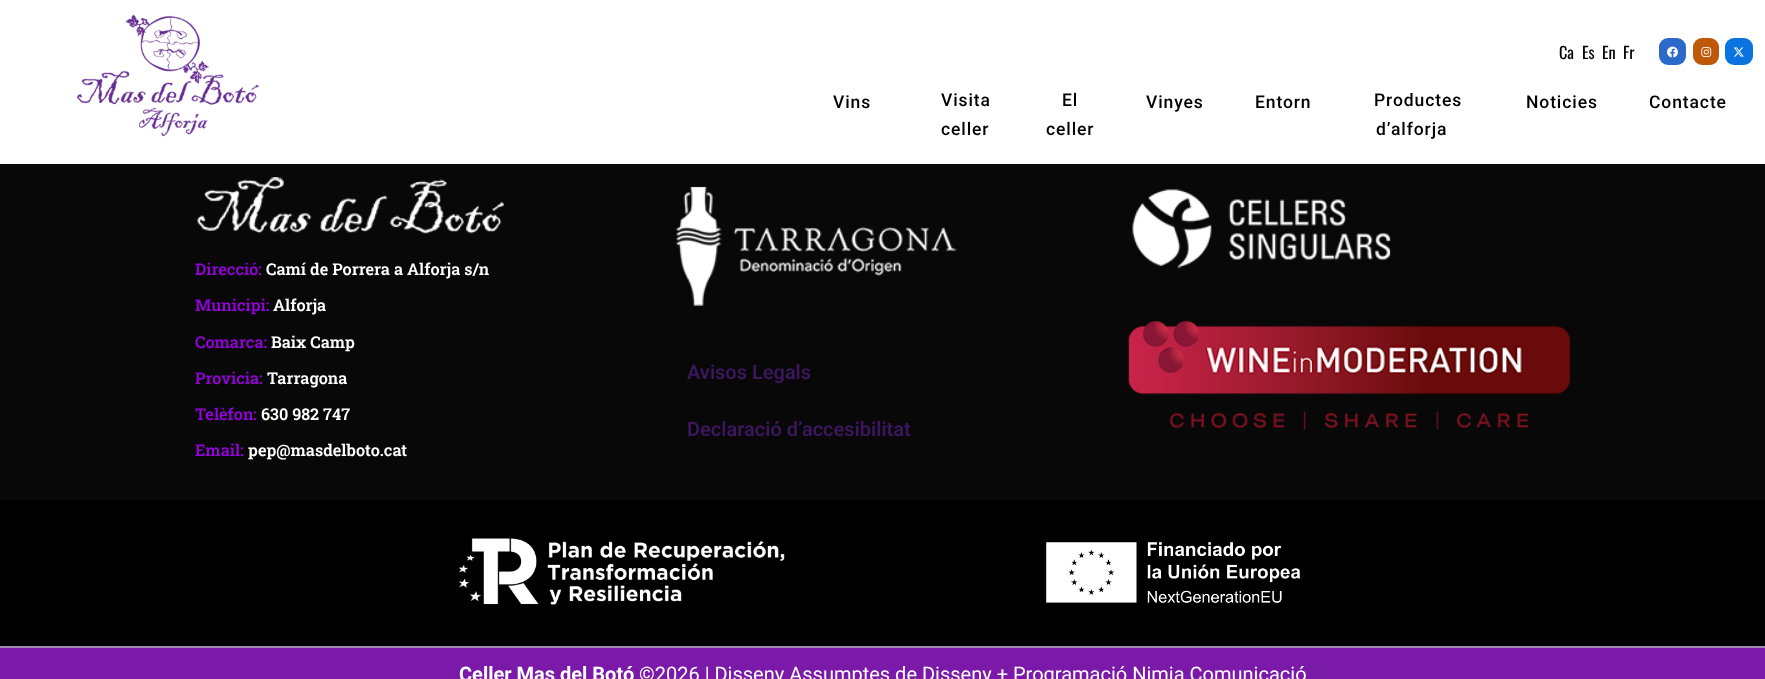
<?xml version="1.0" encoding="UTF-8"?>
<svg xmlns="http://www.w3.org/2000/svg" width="1765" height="679">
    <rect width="100%" height="100%" fill="#080808"/>
    <rect x="0" y="0" width="1765" height="164" fill="#FFFFFF"/>
    <image x="77" y="14" width="182" height="123" href="img_01.png"/>
    <text x="1559" y="59" font-family="Oswald" font-size="16.25" fill="#000000">Ca</text>
    <text x="1582" y="59" font-family="Oswald" font-size="16.25" fill="#000000">Es</text>
    <text x="1602" y="59" font-family="Oswald" font-size="16.25" fill="#000000">En</text>
    <text x="1623" y="59" font-family="Oswald" font-size="16.25" fill="#000000">Fr</text>
    <rect x="1659" y="38" width="27" height="27" rx="9" fill="#2C6ACA"/>
    <image x="1667" y="46" width="11" height="12" href="img_02.png"/>
    <rect x="1693" y="38" width="26" height="27" rx="9" fill="#C0580A"/>
    <image x="1701" y="47" width="11" height="10" href="img_03.png"/>
    <rect x="1725" y="38" width="28" height="27" rx="9" fill="#0A73E0"/>
    <image x="1733" y="47" width="11" height="10" href="img_04.png"/>
    <text x="833" y="108" font-family="Roboto" font-size="17.5" font-weight="500" letter-spacing="0.9" fill="#000000">Vins</text>
    <text font-family="Roboto" font-size="17.5" font-weight="500" letter-spacing="0.9" fill="#000000">
        <tspan x="941" y="106">Visita</tspan>
        <tspan x="941" y="135">celler</tspan>
    </text>
    <text x="1062" y="106" font-family="Roboto" font-size="17.5" font-weight="500" letter-spacing="0.9" fill="#000000">El</text>
    <text x="1046" y="135" font-family="Roboto" font-size="17.5" font-weight="500" letter-spacing="0.9" fill="#000000">celler</text>
    <text x="1146" y="108" font-family="Roboto" font-size="17.5" font-weight="500" letter-spacing="0.9" fill="#000000">Vinyes</text>
    <text x="1255" y="108" font-family="Roboto" font-size="17.5" font-weight="500" letter-spacing="0.9" fill="#000000">Entorn</text>
    <text x="1374" y="106" font-family="Roboto" font-size="17.5" font-weight="500" letter-spacing="0.9" fill="#000000">Productes</text>
    <text x="1376" y="135" font-family="Roboto" font-size="17.5" font-weight="500" letter-spacing="0.9" fill="#000000">d’alforja</text>
    <text x="1526" y="108" font-family="Roboto" font-size="17.5" font-weight="500" letter-spacing="0.9" fill="#000000">Noticies</text>
    <text x="1649" y="108" font-family="Roboto" font-size="17.5" font-weight="500" letter-spacing="0.9" fill="#000000">Contacte</text>
    <image x="197" y="177" width="307" height="57" href="img_05.png"/>
    <text x="195" y="275" font-family="Roboto Slab" font-size="16.25" font-weight="600" fill="#9401D9">Direcció:</text>
    <text x="266" y="275" font-family="Roboto Slab" font-size="16.25" font-weight="600" fill="#FFFFFF">Camí de Porrera a Alforja s/n</text>
    <text x="195" y="311" font-family="Roboto Slab" font-size="16.25" font-weight="600" fill="#9401D9">Municipi:</text>
    <text x="273" y="311" font-family="Roboto Slab" font-size="16.25" font-weight="600" fill="#FFFFFF">Alforja</text>
    <text x="195" y="348" font-family="Roboto Slab" font-size="16.25" font-weight="600" fill="#9401D9">Comarca:</text>
    <text x="271" y="348" font-family="Roboto Slab" font-size="16.25" font-weight="600" fill="#FFFFFF">Baix Camp</text>
    <text x="195" y="384" font-family="Roboto Slab" font-size="16.25" font-weight="600" fill="#9401D9">Provicia:</text>
    <text x="267" y="384" font-family="Roboto Slab" font-size="16.25" font-weight="600" fill="#FFFFFF">Tarragona</text>
    <text x="195" y="420" font-family="Roboto Slab" font-size="16.25" font-weight="600" fill="#9401D9">Telèfon:</text>
    <text x="261" y="420" font-family="Roboto Slab" font-size="16.25" font-weight="600" fill="#FFFFFF">630 982 747</text>
    <text x="195" y="456" font-family="Roboto Slab" font-size="16.25" font-weight="600" fill="#9401D9">Email:</text>
    <text x="248" y="456" font-family="Roboto Slab" font-size="16.25" font-weight="600" fill="#FFFFFF">pep@masdelboto.cat</text>
    <image x="676" y="186" width="281" height="120" href="img_06.png"/>
    <text x="687" y="379" font-family="Roboto" font-size="20" font-weight="600" fill="#3C175E">Avisos Legals</text>
    <text x="687" y="436" font-family="Roboto" font-size="20" font-weight="600" fill="#3C175E">Declaració d’accesibilitat</text>
    <image x="1132" y="189" width="259" height="80" href="img_07.png"/>
    <image x="1128" y="321" width="442" height="109" href="img_08.png"/>
    <rect x="0" y="500" width="1765" height="146" fill="#000000"/>
    <image x="458" y="538" width="327" height="67" href="img_09.png"/>
    <image x="1046" y="542" width="255" height="61" href="img_10.png"/>
    <rect x="0" y="646" width="1765" height="2" fill="#9E8BAF"/>
    <rect x="0" y="648" width="1765" height="31" fill="#7B19A8"/>
    <text x="459" y="681" font-family="Roboto" font-size="20" font-weight="700" fill="#FFFFFF">Celler Mas del Botó</text>
    <text x="639" y="681" font-family="Roboto" font-size="20" fill="#FFFFFF">©2026 | Disseny Assumptes de Disseny + Programació Nimia Comunicació</text>
</svg>
